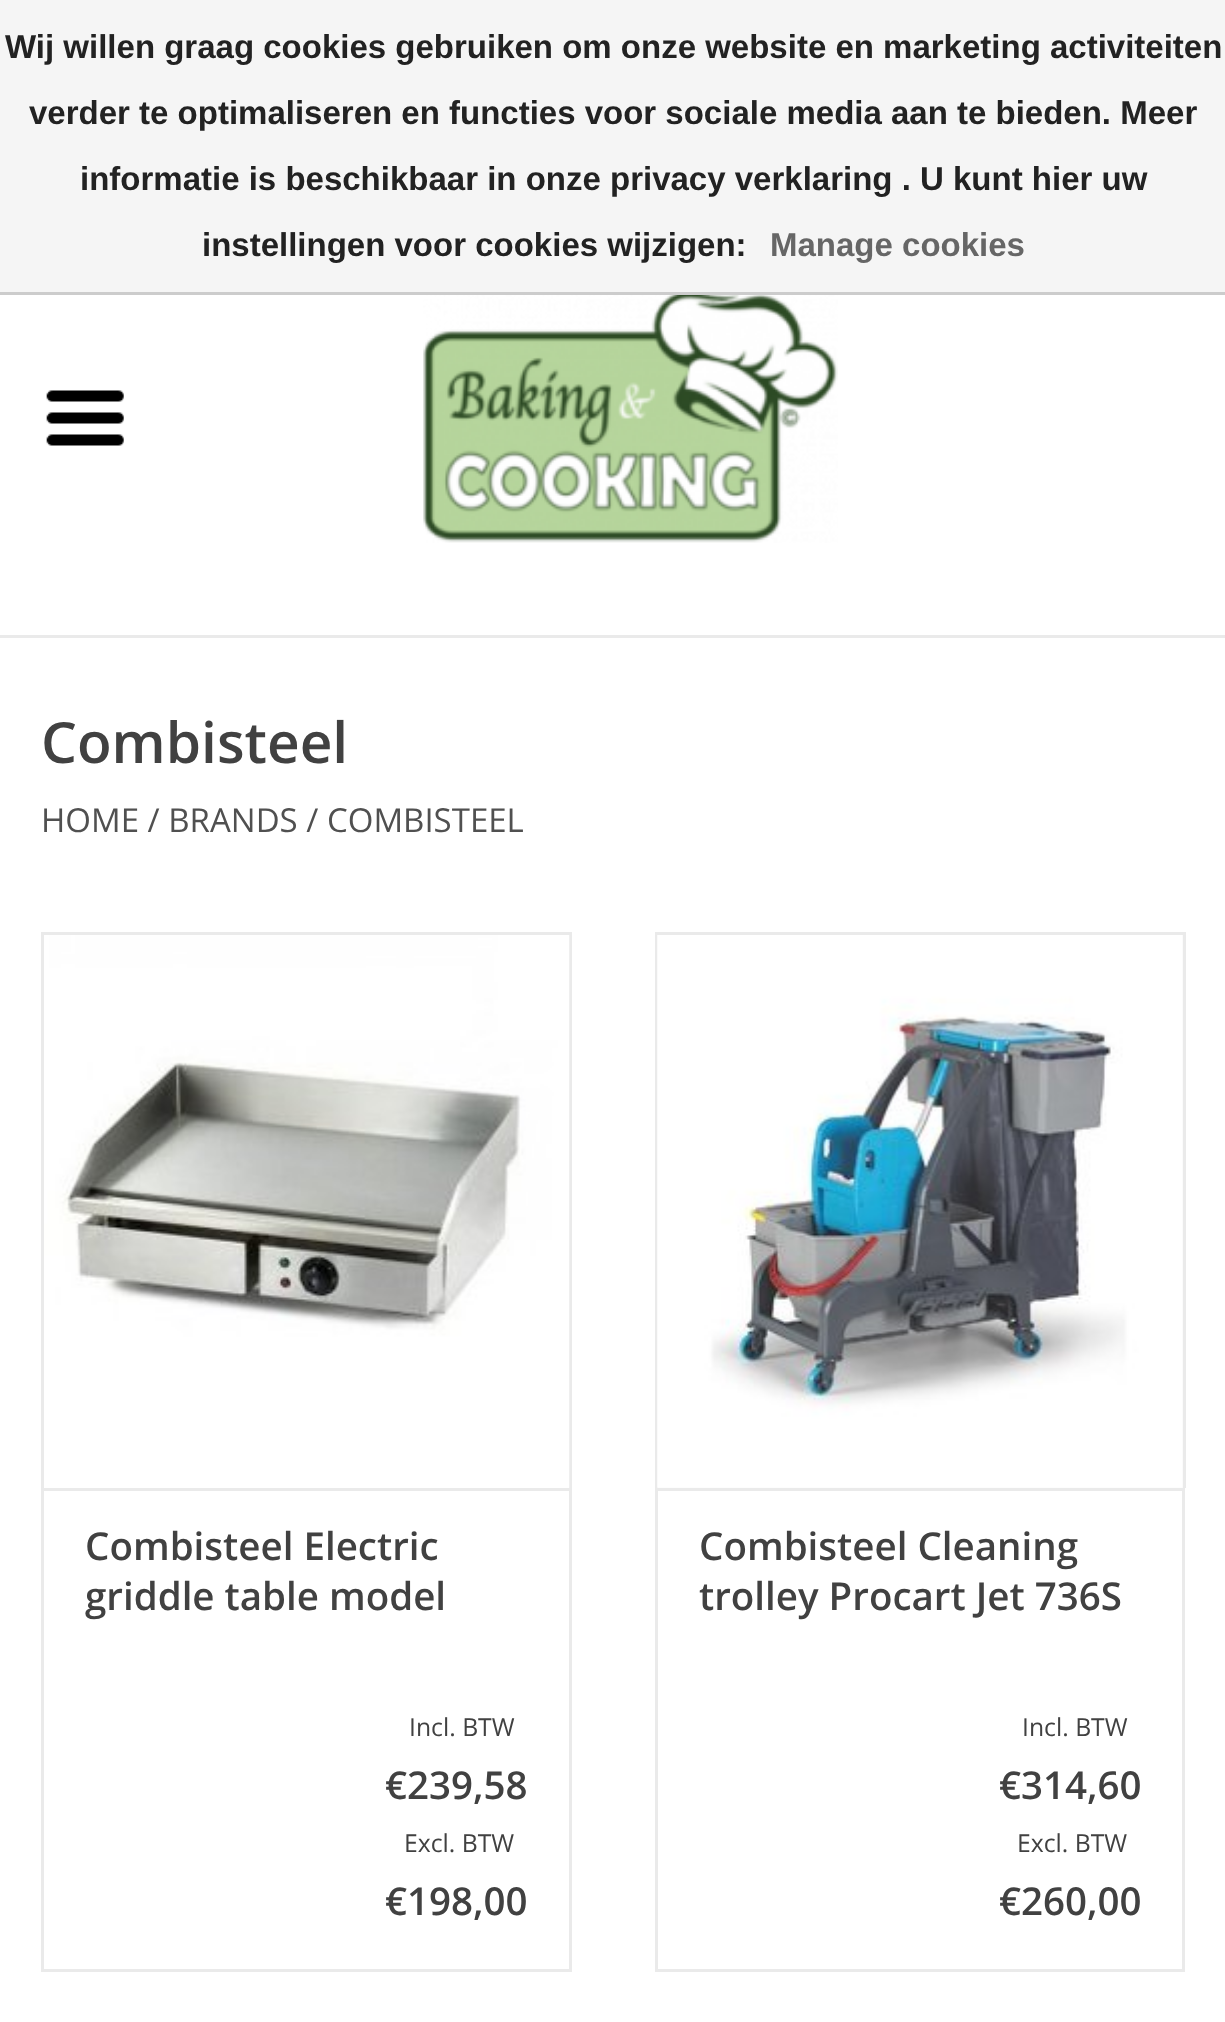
<?xml version="1.0" encoding="UTF-8"?>
<svg xmlns="http://www.w3.org/2000/svg" width="1225" height="2022">
    <rect width="100%" height="100%" fill="#FFFFFF"/>
    <rect x="0" y="0" width="1225" height="292" fill="#F5F5F5"/>
    <rect x="0" y="292" width="1225" height="3" fill="#CCCCCC"/>
    <text x="5" y="58" font-family="Liberation Sans" font-size="33" font-weight="700" fill="#222222">Wij willen graag cookies gebruiken om onze website en marketing activiteiten</text>
    <text x="29" y="124" font-family="Liberation Sans" font-size="33" font-weight="700" fill="#222222">verder te optimaliseren en functies voor sociale media aan te bieden. Meer</text>
    <text x="80" y="190" font-family="Liberation Sans" font-size="33" font-weight="700" fill="#222222">informatie is beschikbaar in onze privacy verklaring . U kunt hier uw</text>
    <text x="202" y="256" font-family="Liberation Sans" font-size="33" font-weight="700" fill="#222222">instellingen voor cookies wijzigen:</text>
    <text x="770" y="256" font-family="Liberation Sans" font-size="33" font-weight="700" fill="#666666">Manage cookies</text>
    <rect x="0" y="635" width="1225" height="3" fill="#EAEAEA"/>
    <image x="423" y="295" width="415" height="248" href="img_01.png"/>
    <image x="46" y="390" width="78" height="56" href="img_02.png"/>
    <text x="41" y="763" font-family="Open Sans" font-size="56.75" font-weight="600" fill="#414141">Combisteel</text>
    <text x="41" y="832" font-family="Open Sans" font-size="33" fill="#505050">HOME / BRANDS / COMBISTEEL</text>
    <rect x="41" y="932" width="531" height="3" fill="#EAEAEA"/>
    <rect x="569" y="932" width="3" height="556" fill="#EAEAEA"/>
    <rect x="41" y="932" width="3" height="556" fill="#EAEAEA"/>
    <image x="44" y="935" width="526" height="553" href="img_03.png"/>
    <rect x="42.5" y="1489.5" width="528" height="481" fill="none" stroke="#EAEAEA" stroke-width="3"/>
    <text font-family="Open Sans" font-size="38.5" font-weight="600" fill="#414141">
        <tspan x="85" y="1560">Combisteel Electric</tspan>
        <tspan x="85" y="1610">griddle table model</tspan>
    </text>
    <text x="409" y="1736" font-family="Open Sans" font-size="24.75" fill="#414141">Incl. BTW</text>
    <text x="385" y="1799" font-family="Open Sans" font-size="38.5" font-weight="600" fill="#414141">€239,58</text>
    <text x="404" y="1852" font-family="Open Sans" font-size="24.75" fill="#414141">Excl. BTW</text>
    <text x="385" y="1915" font-family="Open Sans" font-size="38.5" font-weight="600" fill="#414141">€198,00</text>
    <rect x="658" y="935" width="525" height="553" fill="#F7F7F7"/>
    <rect x="655" y="932" width="530" height="3" fill="#EAEAEA"/>
    <rect x="1183" y="932" width="3" height="556" fill="#EAEAEA"/>
    <rect x="655" y="932" width="3" height="556" fill="#EAEAEA"/>
    <image x="657" y="935" width="526" height="553" href="img_04.png"/>
    <rect x="656.5" y="1489.5" width="527" height="481" fill="none" stroke="#EAEAEA" stroke-width="3"/>
    <text font-family="Open Sans" font-size="38.5" font-weight="600" fill="#414141">
        <tspan x="699" y="1560">Combisteel Cleaning</tspan>
        <tspan x="699" y="1610">trolley Procart Jet 736S</tspan>
    </text>
    <text x="1022" y="1736" font-family="Open Sans" font-size="24.75" fill="#414141">Incl. BTW</text>
    <text x="999" y="1799" font-family="Open Sans" font-size="38.5" font-weight="600" fill="#414141">€314,60</text>
    <text x="1017" y="1852" font-family="Open Sans" font-size="24.75" fill="#414141">Excl. BTW</text>
    <text x="999" y="1915" font-family="Open Sans" font-size="38.5" font-weight="600" fill="#414141">€260,00</text>
</svg>
